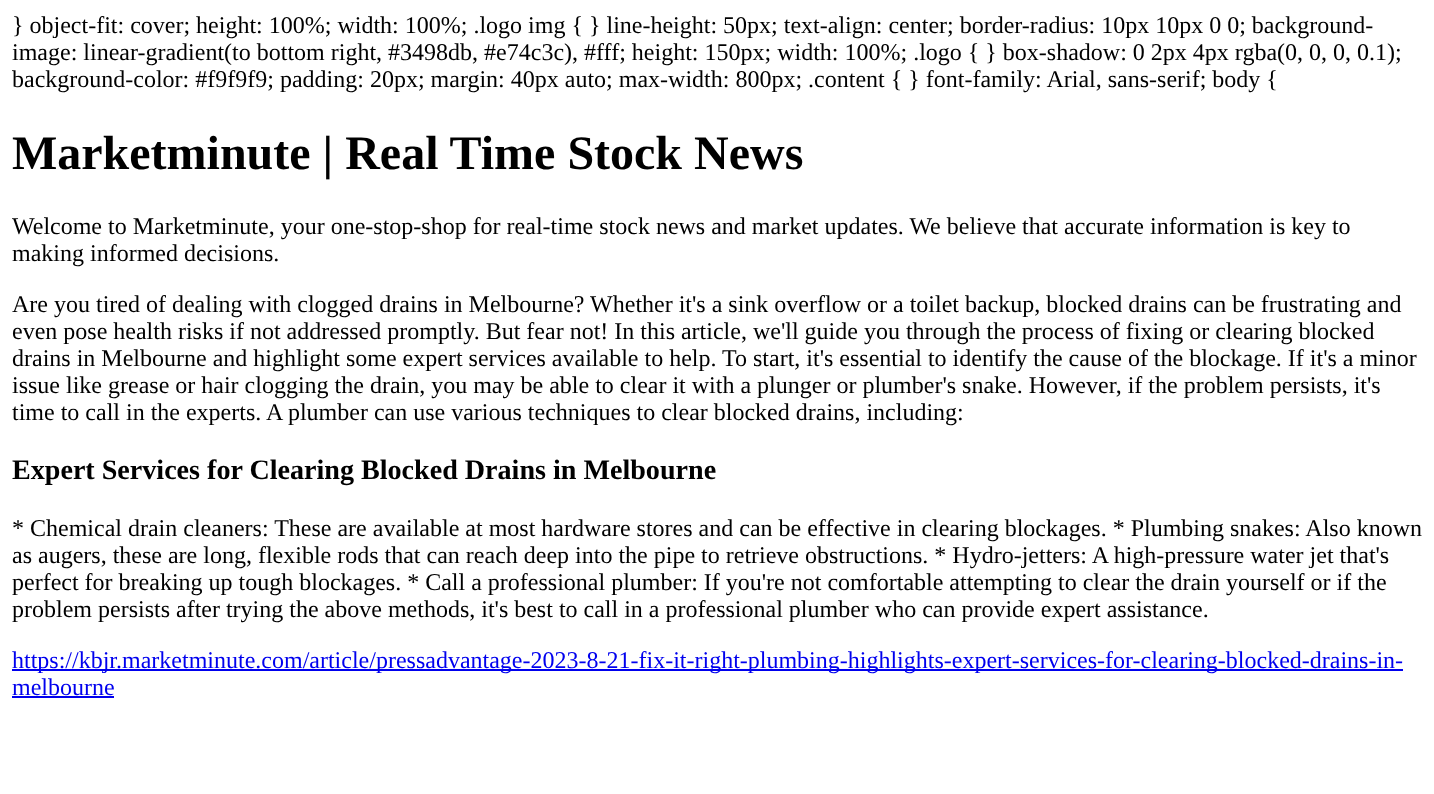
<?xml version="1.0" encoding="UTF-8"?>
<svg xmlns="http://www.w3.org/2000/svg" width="1434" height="794">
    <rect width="100%" height="100%" fill="#FFFFFF"/>
    <text font-family="Liberation Serif" font-size="24" fill="#000000">
        <tspan x="12" y="33">} object-fit: cover; height: 100%; width: 100%; .logo img { } line-height: 50px; text-align: center; border-radius: 10px 10px 0 0; background-</tspan>
        <tspan x="12" y="60">image: linear-gradient(to bottom right, #3498db, #e74c3c), #fff; height: 150px; width: 100%; .logo { } box-shadow: 0 2px 4px rgba(0, 0, 0, 0.1);</tspan>
        <tspan x="12" y="87">background-color: #f9f9f9; padding: 20px; margin: 40px auto; max-width: 800px; .content { } font-family: Arial, sans-serif; body {</tspan>
    </text>
    <text x="12" y="169" font-family="Liberation Serif" font-size="48" font-weight="700" fill="#000000">Marketminute | Real Time Stock News</text>
    <text font-family="Liberation Serif" font-size="24" fill="#000000">
        <tspan x="12" y="234">Welcome to Marketminute, your one-stop-shop for real-time stock news and market updates. We believe that accurate information is key to</tspan>
        <tspan x="12" y="261">making informed decisions.</tspan>
    </text>
    <text font-family="Liberation Serif" font-size="24" fill="#000000">
        <tspan x="12" y="312">Are you tired of dealing with clogged drains in Melbourne? Whether it's a sink overflow or a toilet backup, blocked drains can be frustrating and</tspan>
        <tspan x="12" y="339">even pose health risks if not addressed promptly. But fear not! In this article, we'll guide you through the process of fixing or clearing blocked</tspan>
        <tspan x="12" y="366">drains in Melbourne and highlight some expert services available to help.</tspan>
    </text>
    <text x="722" y="366" font-family="Liberation Serif" font-size="24" fill="#000000">To start, it's essential to identify the cause of the blockage. If it's a minor</text>
    <text font-family="Liberation Serif" font-size="24" fill="#000000">
        <tspan x="12" y="393">issue like grease or hair clogging the drain, you may be able to clear it with a plunger or plumber's snake. However, if the problem persists, it's</tspan>
        <tspan x="12" y="420">time to call in the experts. A plumber can use various techniques to clear blocked drains, including:</tspan>
    </text>
    <text x="12" y="479" font-family="Liberation Serif" font-size="28.1" font-weight="700" fill="#000000">Expert Services for Clearing Blocked Drains in Melbourne</text>
    <text font-family="Liberation Serif" font-size="24" fill="#000000">
        <tspan x="12" y="536">* Chemical drain cleaners: These are available at most hardware stores and can be effective in clearing blockages. * Plumbing snakes: Also known</tspan>
        <tspan x="12" y="563">as augers, these are long, flexible rods that can reach deep into the pipe to retrieve obstructions. * Hydro-jetters: A high-pressure water jet that's</tspan>
        <tspan x="12" y="590">perfect for breaking up tough blockages. * Call a professional plumber: If you're not comfortable attempting to clear the drain yourself or if the</tspan>
        <tspan x="12" y="617">problem persists after trying the above methods, it's best to call in a professional plumber who can provide expert assistance.</tspan>
    </text>
    <rect x="12" y="669" width="1391" height="2" fill="#0000EE"/>
    <text font-family="Liberation Serif" font-size="24" fill="#0000EE">
        <tspan x="12" y="668">https://kbjr.marketminute.com/article/pressadvantage-2023-8-21-fix-it-right-plumbing-highlights-expert-services-for-clearing-blocked-drains-in-</tspan>
        <tspan x="12" y="695">melbourne</tspan>
    </text>
    <rect x="12" y="696" width="102" height="2" fill="#0000EE"/>
</svg>
